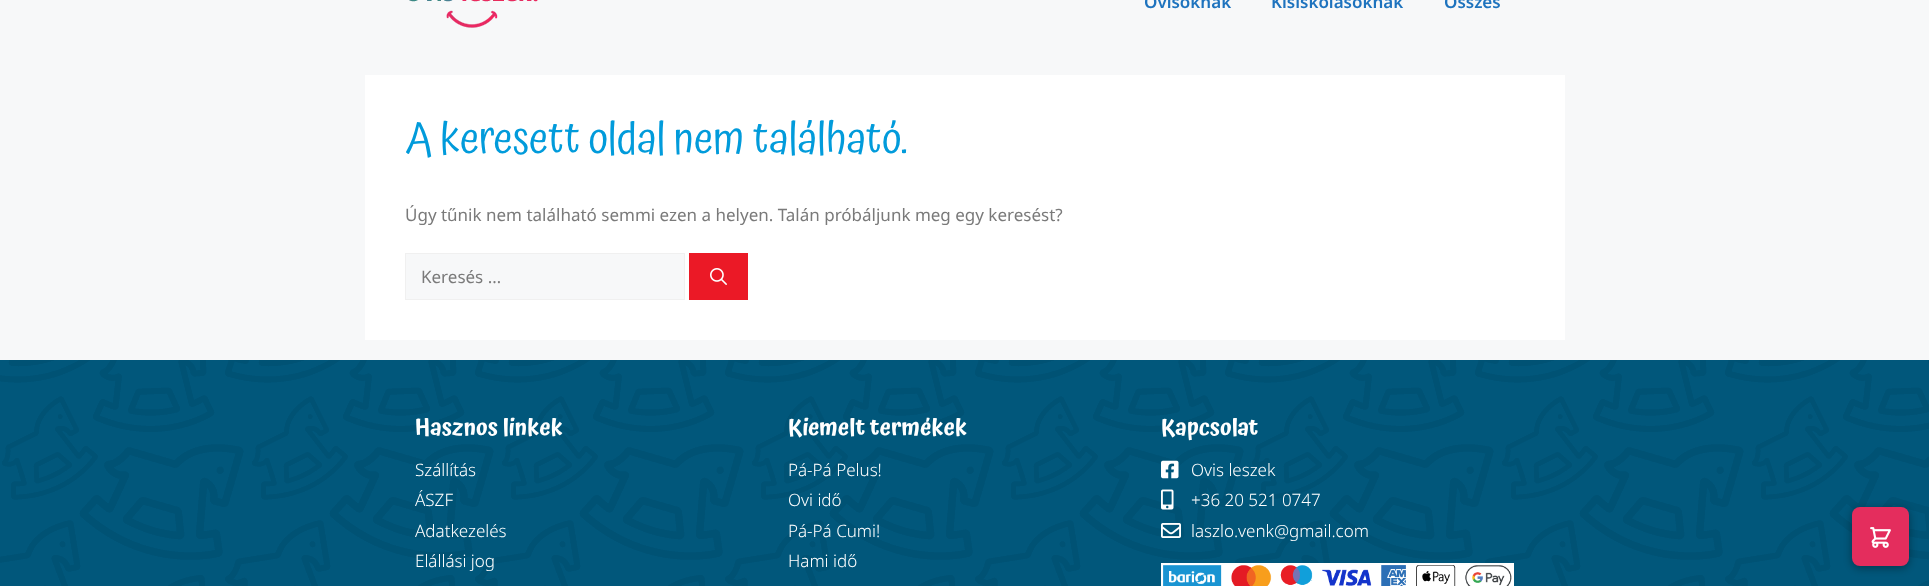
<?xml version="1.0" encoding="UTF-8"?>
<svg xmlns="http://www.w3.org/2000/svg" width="1929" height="586">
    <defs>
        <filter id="blur1" x="-50%" y="-200%" width="200%" height="500%"><feGaussianBlur stdDeviation="5"/></filter>
    </defs>
    <rect width="100%" height="100%" fill="#F7F8F9"/>
    <image x="409" y="0" width="129" height="28" href="img_01.png"/>
    <text x="1144" y="8" font-family="Noto Sans" font-size="17" font-weight="600" fill="#1E73BE">Ovisoknak</text>
    <text x="1271" y="8" font-family="Noto Sans" font-size="17" font-weight="600" fill="#1E73BE">Kisiskolásoknak</text>
    <text x="1444" y="8" font-family="Noto Sans" font-size="17" font-weight="600" fill="#1E73BE">Összes</text>
    <rect x="365" y="75" width="1200" height="265" fill="#FFFFFF"/>
    <text x="405" y="153" font-family="Atma" font-size="44" fill="#019BDB">A keresett oldal nem található.</text>
    <text x="405" y="221" font-family="Noto Sans" font-size="17" fill="#7A7A7A">Úgy tűnik nem található semmi ezen a helyen. Talán próbáljunk meg egy keresést?</text>
    <rect x="405.5" y="253.5" width="279" height="46" fill="#F7F8F9" stroke="#F0F0F0"/>
    <text x="421" y="283" font-family="Noto Sans" font-size="17" fill="#7A7A7A">Keresés …</text>
    <rect x="689" y="253" width="59" height="47" fill="#EB1926"/>
    <image x="710" y="268" width="17" height="17" href="img_02.png"/>
    <rect x="0" y="360" width="1929" height="226" fill="#01577B"/>
    <image x="0" y="360" width="1929" height="226" href="img_03.png"/>
    <text x="415" y="435" font-family="Atma" font-size="23" font-weight="600" fill="#FFFFFF">Hasznos linkek</text>
    <text font-family="Noto Sans" font-size="17" font-weight="300" fill="#FFFFFF">
        <tspan x="415" y="476">Szállítás</tspan>
        <tspan x="415" y="506">ÁSZF</tspan>
        <tspan x="415" y="537">Adatkezelés</tspan>
        <tspan x="415" y="567">Elállási jog</tspan>
    </text>
    <text x="788" y="435" font-family="Atma" font-size="23" font-weight="600" fill="#FFFFFF">Kiemelt termékek</text>
    <text font-family="Noto Sans" font-size="17" font-weight="300" fill="#FFFFFF">
        <tspan x="788" y="476">Pá-Pá Pelus!</tspan>
        <tspan x="788" y="506">Ovi idő</tspan>
        <tspan x="788" y="537">Pá-Pá Cumi!</tspan>
        <tspan x="788" y="567">Hami idő</tspan>
    </text>
    <text x="1161" y="435" font-family="Atma" font-size="23" font-weight="600" fill="#FFFFFF">Kapcsolat</text>
    <image x="1161" y="460" width="18" height="19" href="img_04.png"/>
    <text x="1191" y="476" font-family="Noto Sans" font-size="17" font-weight="300" fill="#FFFFFF">Ovis leszek</text>
    <image x="1161" y="489" width="13" height="21" href="img_05.png"/>
    <text x="1191" y="506" font-family="Noto Sans" font-size="17" font-weight="300" fill="#FFFFFF">+36 20 521 0747</text>
    <image x="1161" y="523" width="20" height="15" href="img_06.png"/>
    <text x="1191" y="537" font-family="Noto Sans" font-size="17" font-weight="300" fill="#FFFFFF">laszlo.venk@gmail.com</text>
    <image x="1161" y="563" width="353" height="23" href="img_07.png"/>
    <rect x="1852" y="509" width="57" height="59" rx="8" fill="#000000" fill-opacity="0.37" filter="url(#blur1)"/>
    <rect x="1852" y="507" width="57" height="59" rx="8" fill="#E42D5D"/>
    <image x="1870" y="527" width="21" height="21" href="img_08.png"/>
</svg>
